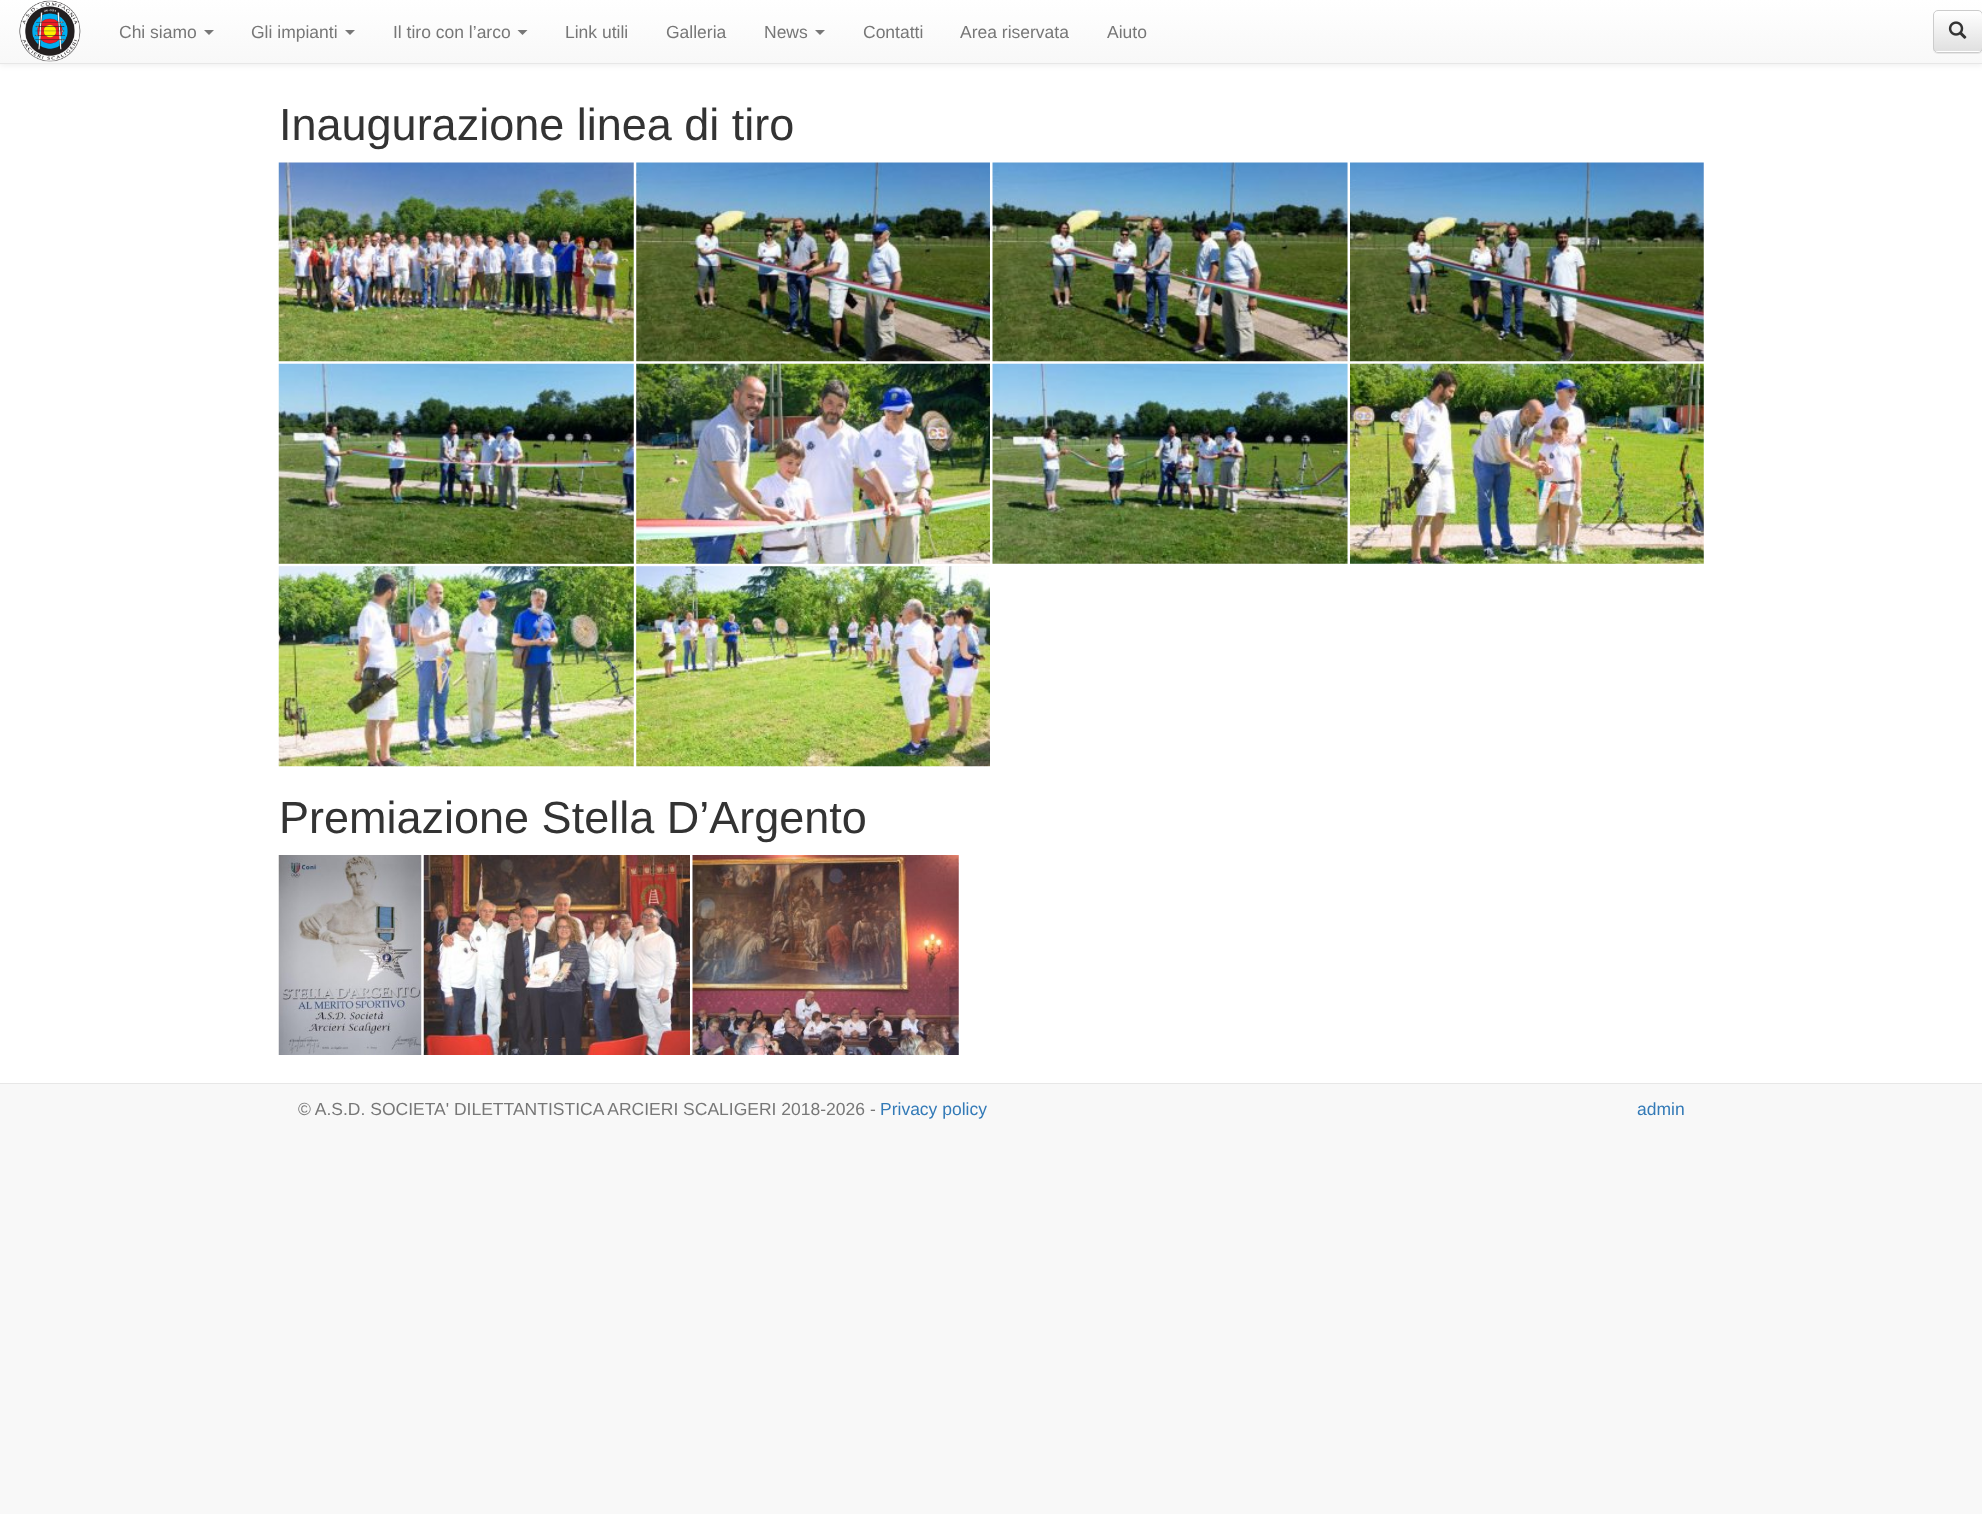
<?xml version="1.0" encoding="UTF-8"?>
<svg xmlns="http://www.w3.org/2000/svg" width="1982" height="1514">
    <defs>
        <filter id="blur1" x="-50%" y="-200%" width="200%" height="500%"><feGaussianBlur stdDeviation="3"/></filter>
        <linearGradient id="g1" gradientUnits="userSpaceOnUse" x1="991" y1="0" x2="991" y2="63"><stop offset="0" stop-color="#FFFFFF"/><stop offset="1" stop-color="#F8F8F8"/></linearGradient>
        <filter id="blur2" x="-50%" y="-200%" width="200%" height="500%"><feGaussianBlur stdDeviation="0.5"/></filter>
        <clipPath id="clip1"><rect x="1933" y="10" width="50" height="43" rx="5"/></clipPath>
        <linearGradient id="g2" gradientUnits="userSpaceOnUse" x1="1958" y1="11" x2="1958" y2="51"><stop offset="0" stop-color="#FFFFFF"/><stop offset="1" stop-color="#E0E0E0"/></linearGradient>
    </defs>
    <rect width="100%" height="100%" fill="#F8F8F8"/>
    <rect x="0" y="64" width="1982" height="1019" fill="#FFFFFF"/>
    <rect x="0" y="1" width="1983" height="64" fill="#000000" fill-opacity="0.07" filter="url(#blur1)"/>
    <rect x="0" y="0" width="1982" height="63" fill="url(#g1)"/>
    <rect x="0" y="63" width="1982" height="1" fill="#E7E7E7"/>
    <image x="19" y="0" width="62" height="62" href="img_01.png"/>
    <text x="119" y="38" font-family="Liberation Sans" font-size="17.5" fill="#777777">Chi siamo</text>
    <path d="M 204 30 H 214 L 209 35 Z" fill="#777777"/>
    <text x="251" y="38" font-family="Liberation Sans" font-size="17.5" fill="#777777">Gli impianti</text>
    <path d="M 345 30 H 355 L 350 35 Z" fill="#777777"/>
    <text x="393" y="38" font-family="Liberation Sans" font-size="17.5" fill="#777777">Il tiro con l’arco</text>
    <path d="M 517.5 30 H 527.5 L 522.5 35 Z" fill="#777777"/>
    <text x="565" y="38" font-family="Liberation Sans" font-size="17.5" fill="#777777">Link utili</text>
    <text x="666" y="38" font-family="Liberation Sans" font-size="17.5" fill="#777777">Galleria</text>
    <text x="764" y="38" font-family="Liberation Sans" font-size="17.5" fill="#777777">News</text>
    <path d="M 815 30 H 825 L 820 35 Z" fill="#777777"/>
    <text x="863" y="38" font-family="Liberation Sans" font-size="17.5" fill="#777777">Contatti</text>
    <text x="960" y="38" font-family="Liberation Sans" font-size="17.5" fill="#777777">Area riservata</text>
    <text x="1107" y="38" font-family="Liberation Sans" font-size="17.5" fill="#777777">Aiuto</text>
    <rect x="1933" y="11" width="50" height="43" rx="5" fill="#000000" fill-opacity="0.07" filter="url(#blur2)"/>
    <rect x="1933" y="10" width="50" height="43" rx="5" fill="#FFFFFF"/>
    <g clip-path="url(#clip1)">
        <rect x="1933" y="11" width="49" height="40" fill="url(#g2)"/>
    </g>
    <rect x="1933.5" y="10.5" width="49" height="42" rx="4.5" fill="none" stroke="#CCCCCC"/>
    <image x="1948" y="21" width="19" height="18" href="img_02.png"/>
    <text x="279" y="140" font-family="Liberation Sans" font-size="45" fill="#333333">Inaugurazione linea di tiro</text>
    <image x="278" y="162" width="356" height="200" href="img_03.png"/>
    <image x="636" y="162" width="354" height="200" href="img_04.png"/>
    <rect x="1347" y="163" width="1" height="198" fill="#F4F4F4"/>
    <image x="992" y="162" width="356" height="200" href="img_05.png"/>
    <image x="1350" y="162" width="354" height="200" href="img_06.png"/>
    <rect x="279" y="364" width="355" height="200" fill="#F4F4F4"/>
    <image x="278" y="363" width="356" height="201" href="img_07.png"/>
    <rect x="636" y="364" width="354" height="200" fill="#F4F4F4"/>
    <image x="636" y="363" width="354" height="201" href="img_08.png"/>
    <rect x="993" y="364" width="355" height="200" fill="#F4F4F4"/>
    <image x="992" y="363" width="356" height="201" href="img_09.png"/>
    <rect x="1350" y="364" width="354" height="200" fill="#F4F4F4"/>
    <image x="1350" y="363" width="354" height="201" href="img_10.png"/>
    <rect x="279" y="566" width="355" height="200" fill="#F4F4F4"/>
    <image x="278" y="566" width="356" height="201" href="img_11.png"/>
    <rect x="636" y="566" width="354" height="200" fill="#F4F4F4"/>
    <image x="636" y="566" width="354" height="201" href="img_12.png"/>
    <text x="279" y="833" font-family="Liberation Sans" font-size="45" fill="#333333">Premiazione Stella D’Argento</text>
    <image x="278" y="855" width="144" height="200" href="img_13.png"/>
    <image x="423" y="855" width="267" height="200" href="img_14.png"/>
    <image x="692" y="855" width="267" height="200" href="img_15.png"/>
    <rect x="0" y="1083" width="1982" height="1" fill="#E7E7E7"/>
    <text x="298" y="1115" font-family="Liberation Sans" font-size="17.5" fill="#777777">© A.S.D. SOCIETA' DILETTANTISTICA ARCIERI SCALIGERI 2018-2026 -</text>
    <text x="880" y="1115" font-family="Liberation Sans" font-size="17.5" fill="#337AB7">Privacy policy</text>
    <text x="1637" y="1115" font-family="Liberation Sans" font-size="17.5" fill="#337AB7">admin</text>
</svg>
